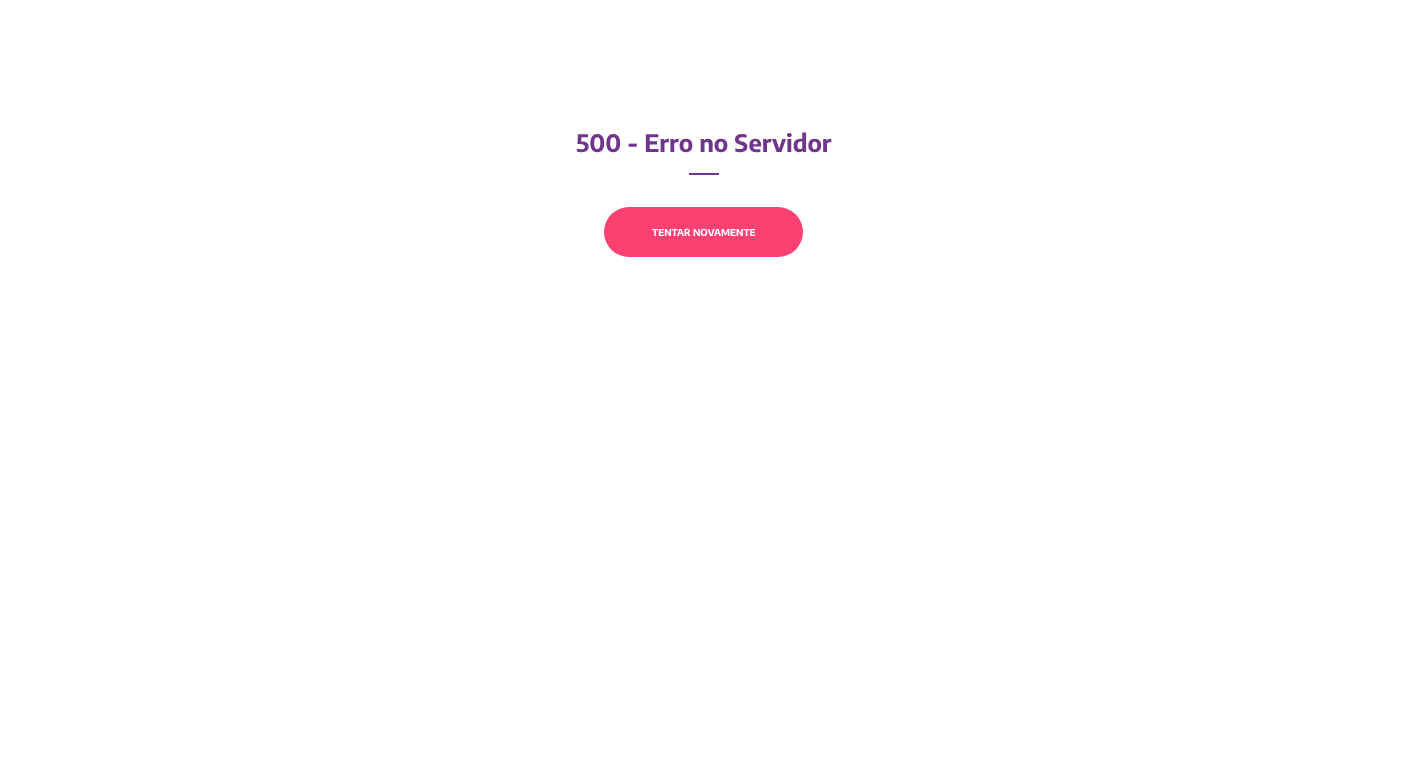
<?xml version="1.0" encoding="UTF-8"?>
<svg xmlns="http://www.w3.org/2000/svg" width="1407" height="766">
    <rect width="100%" height="100%" fill="#FFFFFF"/>
    <text x="576" y="152" font-family="Encode Sans Condensed" font-size="24" font-weight="700" fill="#70368B">500 - Erro no Servidor</text>
    <rect x="689" y="173" width="30" height="2" fill="#70368B"/>
    <rect x="604" y="207" width="199" height="50" rx="25" fill="#FA4172"/>
    <text x="652" y="236" font-family="Encode Sans Condensed" font-size="9.6" font-weight="700" fill="#FFFFFF">TENTAR NOVAMENTE</text>
</svg>
